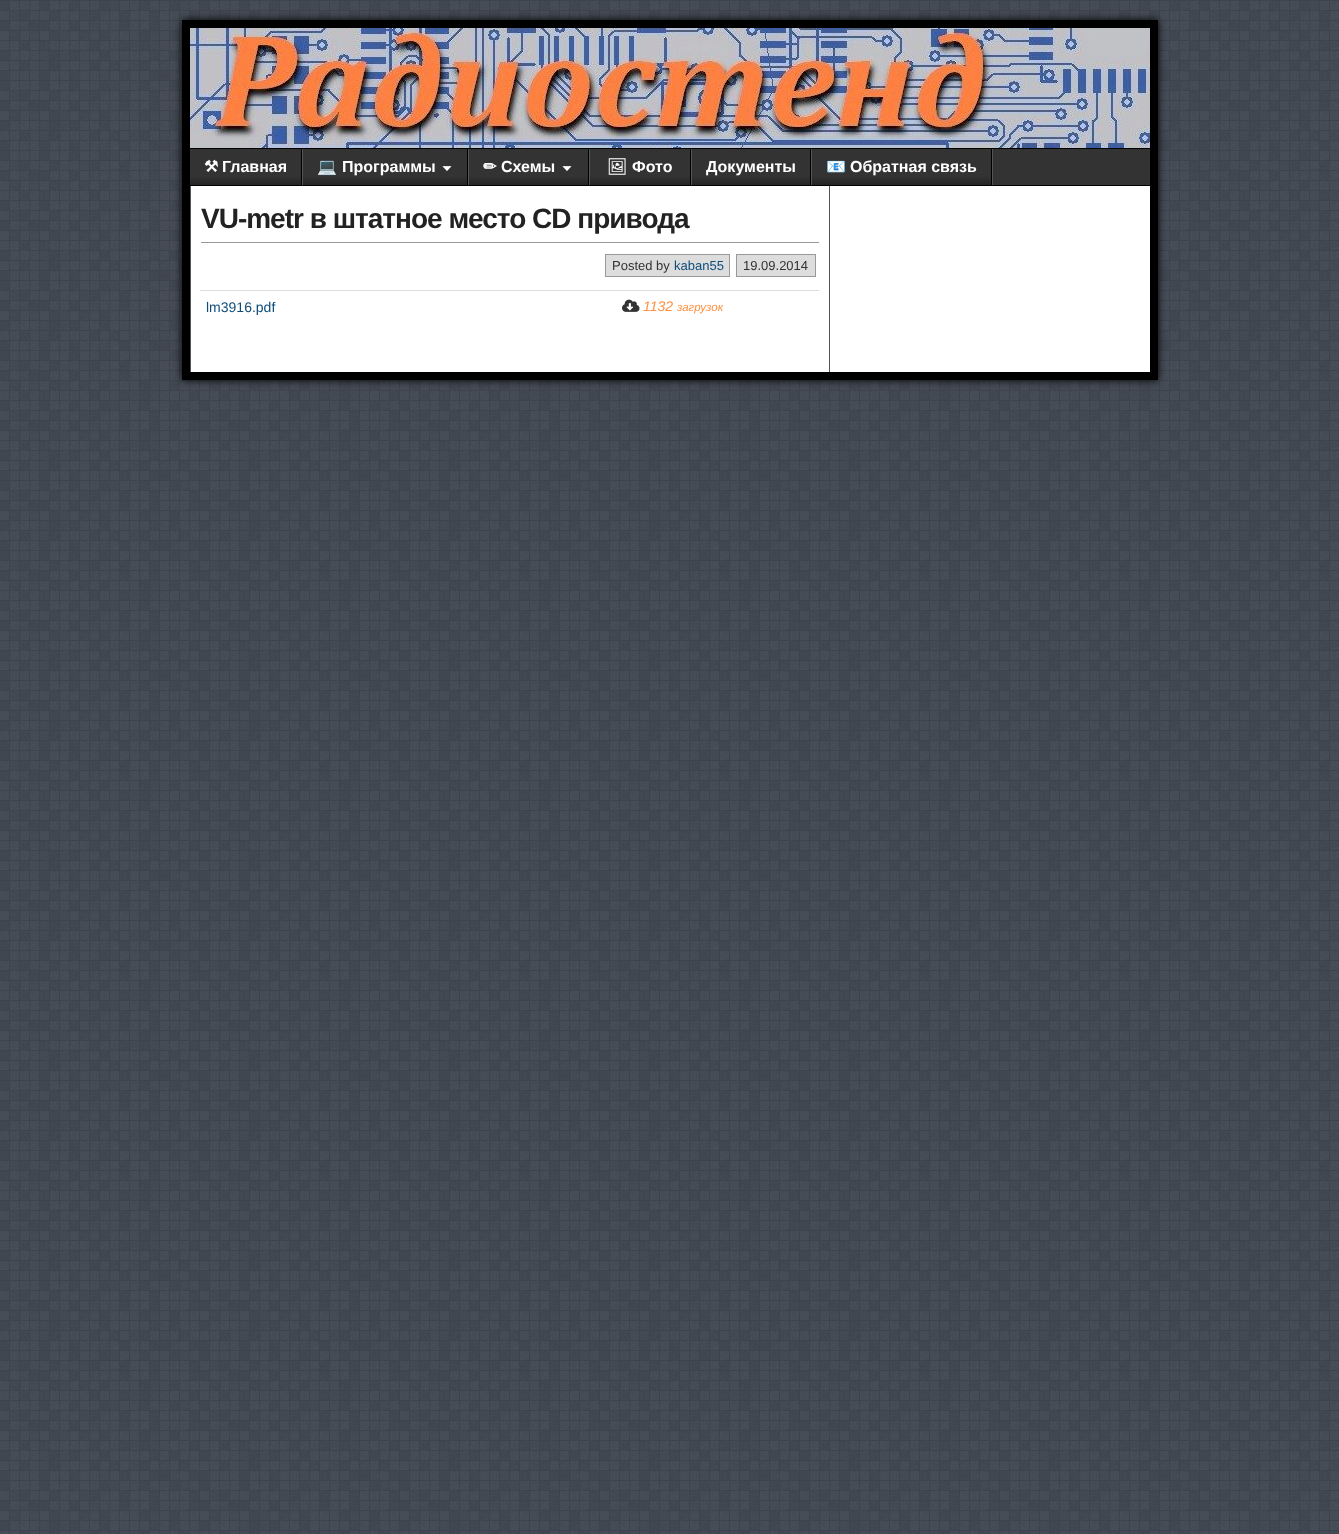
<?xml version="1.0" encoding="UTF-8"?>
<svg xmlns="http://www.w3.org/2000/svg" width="1339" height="1534">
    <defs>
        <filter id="blur1" x="-50%" y="-200%" width="200%" height="500%"><feGaussianBlur stdDeviation="4"/></filter>
        <linearGradient id="g1" gradientUnits="userSpaceOnUse" x1="246" y1="149" x2="246" y2="185"><stop offset="0.75" stop-color="#333333"/><stop offset="1" stop-color="#252525"/></linearGradient>
        <linearGradient id="g2" gradientUnits="userSpaceOnUse" x1="385" y1="149" x2="385" y2="185"><stop offset="0.75" stop-color="#333333"/><stop offset="1" stop-color="#252525"/></linearGradient>
        <linearGradient id="g3" gradientUnits="userSpaceOnUse" x1="529" y1="149" x2="529" y2="185"><stop offset="0.75" stop-color="#333333"/><stop offset="1" stop-color="#252525"/></linearGradient>
        <linearGradient id="g4" gradientUnits="userSpaceOnUse" x1="640" y1="149" x2="640" y2="185"><stop offset="0.75" stop-color="#333333"/><stop offset="1" stop-color="#252525"/></linearGradient>
        <linearGradient id="g5" gradientUnits="userSpaceOnUse" x1="751" y1="149" x2="751" y2="185"><stop offset="0.75" stop-color="#333333"/><stop offset="1" stop-color="#252525"/></linearGradient>
        <linearGradient id="g6" gradientUnits="userSpaceOnUse" x1="902" y1="149" x2="902" y2="185"><stop offset="0.75" stop-color="#333333"/><stop offset="1" stop-color="#252525"/></linearGradient>
    </defs>
    <rect width="100%" height="100%" fill="#FFFFFF"/>
    <image x="0" y="0" width="1339" height="1534" href="img_01.png"/>
    <rect x="182" y="20" width="976" height="360" fill="#000000" filter="url(#blur1)"/>
    <rect x="191" y="186" width="959" height="186" fill="#FFFFFF"/>
    <rect x="186" y="24" width="968" height="352" fill="none" stroke="#000000" stroke-width="8"/>
    <image x="190" y="28" width="960" height="120" href="img_02.png"/>
    <rect x="993" y="149" width="157" height="36" fill="#333333"/>
    <rect x="992" y="149" width="1" height="36" fill="#555555"/>
    <rect x="190" y="149" width="111" height="36" fill="url(#g1)"/>
    <text x="204" y="172" font-family="DejaVu Sans" font-size="16" font-weight="700" fill="#FFFFFF">⚒</text>
    <text x="222" y="172" font-family="Liberation Sans" font-size="16" font-weight="700" fill="#FFFFFF">Главная</text>
    <rect x="302" y="149" width="1" height="36" fill="#555555"/>
    <rect x="303" y="149" width="164" height="36" fill="url(#g2)"/>
    <text x="317" y="172" font-family="Noto Color Emoji" font-size="16" font-weight="700" fill="#FFFFFF">💻</text>
    <text x="342" y="172" font-family="Liberation Sans" font-size="16" font-weight="700" fill="#FFFFFF">Программы</text>
    <image x="442" y="166" width="10" height="5" href="img_03.png"/>
    <rect x="468" y="149" width="1" height="36" fill="#555555"/>
    <rect x="469" y="149" width="119" height="36" fill="url(#g3)"/>
    <text x="483" y="172" font-family="DejaVu Sans" font-size="16" font-weight="700" fill="#FFFFFF">✏</text>
    <text x="501" y="172" font-family="Liberation Sans" font-size="16" font-weight="700" fill="#FFFFFF">Схемы</text>
    <image x="562" y="166" width="10" height="5" href="img_03.png"/>
    <rect x="589" y="149" width="1" height="36" fill="#555555"/>
    <rect x="590" y="149" width="100" height="36" fill="url(#g4)"/>
    <text x="607" y="172" font-family="Noto Emoji" font-size="16" font-weight="700" fill="#FFFFFF">🖼</text>
    <text x="632" y="172" font-family="Liberation Sans" font-size="16" font-weight="700" fill="#FFFFFF">Фото</text>
    <rect x="691" y="149" width="1" height="36" fill="#555555"/>
    <rect x="692" y="149" width="118" height="36" fill="url(#g5)"/>
    <text x="706" y="172" font-family="Liberation Sans" font-size="16" font-weight="700" fill="#FFFFFF">Документы</text>
    <rect x="811" y="149" width="1" height="36" fill="#555555"/>
    <rect x="812" y="149" width="179" height="36" fill="url(#g6)"/>
    <text x="826" y="172" font-family="Noto Color Emoji" font-size="16" font-weight="700" fill="#FFFFFF">📧</text>
    <text x="850" y="172" font-family="Liberation Sans" font-size="16" font-weight="700" fill="#FFFFFF">Обратная связь</text>
    <rect x="829" y="186" width="1" height="186" fill="#555555"/>
    <rect x="190" y="186" width="1" height="186" fill="#555555"/>
    <text x="201" y="228" font-family="Liberation Sans" font-size="28" font-weight="700" letter-spacing="-1" fill="#222222">VU-metr в штатное место CD привода</text>
    <rect x="201" y="242" width="618" height="1" fill="#999999"/>
    <rect x="605.5" y="254.5" width="124" height="22" fill="#DDDDDD" stroke="#999999"/>
    <text x="612" y="270" font-family="Liberation Sans" font-size="13" fill="#333333">Posted by</text>
    <text x="674" y="270" font-family="Liberation Sans" font-size="13" fill="#0E4D7A">kaban55</text>
    <rect x="736.5" y="254.5" width="79" height="22" fill="#DDDDDD" stroke="#999999"/>
    <text x="743" y="270" font-family="Liberation Sans" font-size="13" fill="#333333">19.09.2014</text>
    <rect x="200" y="290" width="619" height="1" fill="#DDDDDD"/>
    <text x="206" y="312" font-family="Liberation Sans" font-size="14" fill="#0E4D7A">lm3916.pdf</text>
    <image x="622" y="299" width="18" height="13" href="img_04.png"/>
    <text x="643" y="311" font-family="Liberation Sans" font-size="14" font-style="italic" fill="#FF9140">1132</text>
    <text x="677" y="311" font-family="Liberation Sans" font-size="11.5" font-style="italic" fill="#FF9140">загрузок</text>
</svg>
